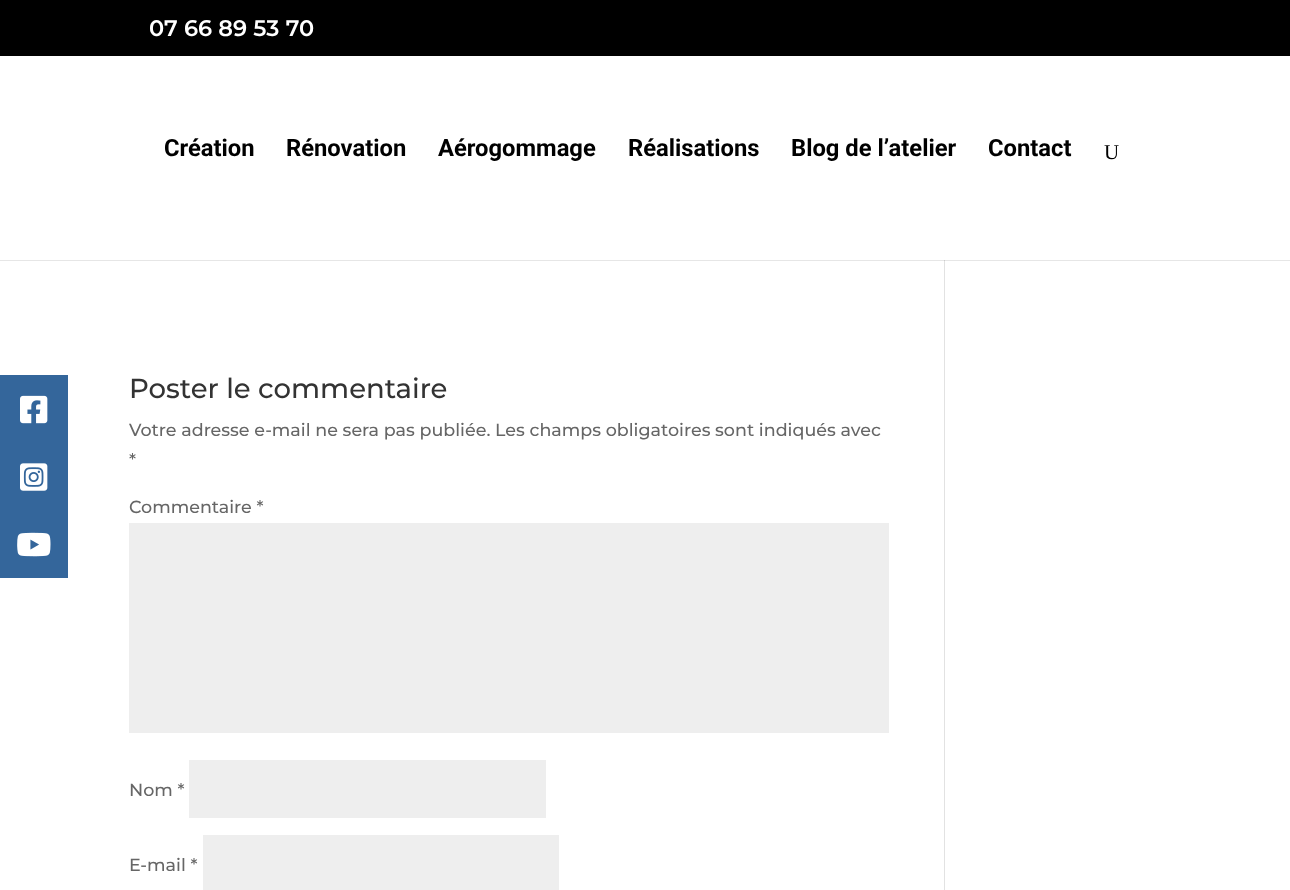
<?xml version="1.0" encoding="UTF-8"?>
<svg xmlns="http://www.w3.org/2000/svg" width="1290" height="890">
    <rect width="100%" height="100%" fill="#FFFFFF"/>
    <rect x="0" y="260" width="1290" height="1" fill="#E6E6E6"/>
    <rect x="0" y="375" width="68" height="203" fill="#34669B"/>
    <image x="20" y="395" width="28" height="29" href="img_01.png"/>
    <image x="20" y="463" width="28" height="28" href="img_02.png"/>
    <image x="17" y="532" width="34" height="25" href="img_03.png"/>
    <rect x="0" y="0" width="1290" height="56" fill="#000000"/>
    <text x="149" y="36" font-family="Montserrat" font-size="22.5" font-weight="600" fill="#FFFFFF">07 66 89 53 70</text>
    <text x="164" y="156" font-family="Roboto" font-size="23.75" font-weight="700" fill="#000000">Création</text>
    <text x="286" y="156" font-family="Roboto" font-size="23.75" font-weight="700" fill="#000000">Rénovation</text>
    <text x="438" y="156" font-family="Roboto" font-size="23.75" font-weight="700" fill="#000000">Aérogommage</text>
    <text x="628" y="156" font-family="Roboto" font-size="23.75" font-weight="700" fill="#000000">Réalisations</text>
    <text x="791" y="156" font-family="Roboto" font-size="23.75" font-weight="700" fill="#000000">Blog de l’atelier</text>
    <text x="988" y="156" font-family="Roboto" font-size="23.75" font-weight="700" fill="#000000">Contact</text>
    <text x="1104" y="159" font-family="Liberation Serif" font-size="21" fill="#000000">U</text>
    <text x="129" y="398" font-family="Montserrat" font-size="27.5" font-weight="500" fill="#333333">Poster le commentaire</text>
    <text font-family="Montserrat" font-size="17.5" font-weight="500" fill="#666666">
        <tspan x="129" y="436">Votre adresse e-mail ne sera pas publiée. Les champs obligatoires sont indiqués avec</tspan>
        <tspan x="129" y="466">*</tspan>
    </text>
    <text x="129" y="513" font-family="Montserrat" font-size="17.5" font-weight="500" fill="#666666">Commentaire *</text>
    <rect x="129" y="523" width="760" height="210" fill="#EEEEEE"/>
    <text x="129" y="796" font-family="Montserrat" font-size="17.5" font-weight="500" fill="#666666">Nom *</text>
    <rect x="189" y="760" width="357" height="58" fill="#EEEEEE"/>
    <text x="129" y="871" font-family="Montserrat" font-size="17.5" font-weight="500" fill="#666666">E-mail *</text>
    <rect x="203" y="835" width="356" height="55" fill="#EEEEEE"/>
    <rect x="944" y="261" width="1" height="629" fill="#E2E2E2"/>
    <rect x="944" y="260" width="1" height="1" fill="#CBCBCB"/>
</svg>
